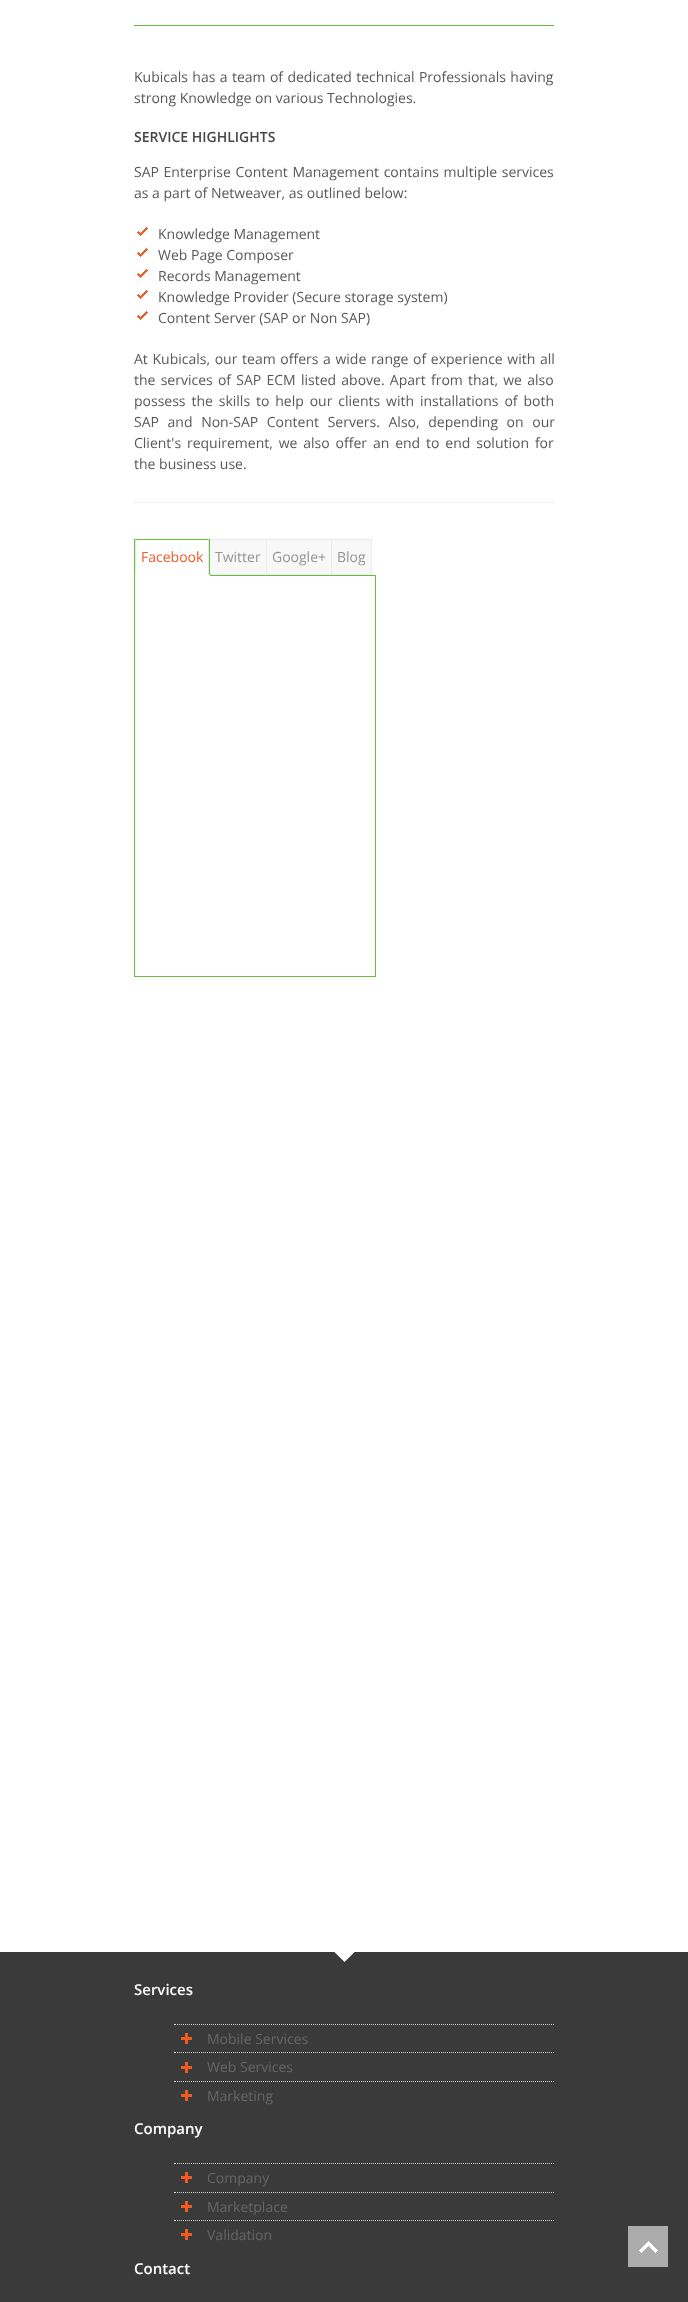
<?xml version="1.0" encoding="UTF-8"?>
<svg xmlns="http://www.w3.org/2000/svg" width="688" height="2302">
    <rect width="100%" height="100%" fill="#FFFFFF"/>
    <rect x="134" y="25" width="420" height="1" fill="#65C03C"/>
    <rect x="134" y="502" width="420" height="1" fill="#EFEFEF"/>
    <text font-family="Open Sans" font-size="14" fill="#585858">
        <tspan x="134" y="82" word-spacing="0.75">Kubicals has a team of dedicated technical Professionals having</tspan>
        <tspan x="134" y="103">strong Knowledge on various Technologies.</tspan>
    </text>
    <text x="134" y="142" font-family="Open Sans" font-size="14" font-weight="600" fill="#474747">SERVICE HIGHLIGHTS</text>
    <text font-family="Open Sans" font-size="14" fill="#585858">
        <tspan x="134" y="177" word-spacing="1">SAP Enterprise Content Management contains multiple services</tspan>
        <tspan x="134" y="198">as a part of Netweaver, as outlined below:</tspan>
    </text>
    <image x="137" y="227" width="11" height="9" href="img_01.png"/>
    <text x="158" y="239" font-family="Open Sans" font-size="14" fill="#585858">Knowledge Management</text>
    <image x="137" y="248" width="11" height="9" href="img_01.png"/>
    <text x="158" y="260" font-family="Open Sans" font-size="14" fill="#585858">Web Page Composer</text>
    <image x="137" y="269" width="11" height="9" href="img_01.png"/>
    <text x="158" y="281" font-family="Open Sans" font-size="14" fill="#585858">Records Management</text>
    <image x="137" y="290" width="11" height="9" href="img_01.png"/>
    <text x="158" y="302" font-family="Open Sans" font-size="14" fill="#585858">Knowledge Provider (Secure storage system)</text>
    <image x="137" y="311" width="11" height="9" href="img_01.png"/>
    <text x="158" y="323" font-family="Open Sans" font-size="14" fill="#585858">Content Server (SAP or Non SAP)</text>
    <text font-family="Open Sans" font-size="14" fill="#585858">
        <tspan x="134" y="364" word-spacing="1">At Kubicals, our team offers a wide range of experience with all</tspan>
        <tspan x="134" y="385" word-spacing="1.6">the services of SAP ECM listed above. Apart from that, we also</tspan>
        <tspan x="134" y="406" word-spacing="2.25">possess the skills to help our clients with installations of both</tspan>
        <tspan x="134" y="427" word-spacing="5">SAP and Non-SAP Content Servers. Also, depending on our</tspan>
        <tspan x="134" y="448" word-spacing="2.25">Client's requirement, we also offer an end to end solution for</tspan>
        <tspan x="134" y="469">the business use.</tspan>
    </text>
    <rect x="134.5" y="575.5" width="241" height="401" fill="none" stroke="#65C03C"/>
    <rect x="209" y="539" width="1" height="37" fill="#65C03C"/>
    <rect x="134" y="575" width="76" height="1" fill="#FFFFFF"/>
    <rect x="134" y="539" width="1" height="37" fill="#65C03C"/>
    <rect x="135" y="539" width="74" height="1" fill="#65C03C"/>
    <path d="M 209 539 V 575 L 208 573 V 540 Z" fill="#EAEAEA"/>
    <path d="M 209 575 H 135 L 136 573 H 208 Z" fill="#FFFFFF"/>
    <path d="M 135 575 V 539 L 136 540 V 573 Z" fill="#EAEAEA"/>
    <text x="141" y="562" font-family="Open Sans" font-size="14" fill="#F15A23">Facebook</text>
    <rect x="210" y="540" width="56" height="34" fill="#F8F8F8"/>
    <rect x="210" y="539" width="162" height="1" fill="#EAEAEA"/>
    <rect x="266" y="539" width="1" height="36" fill="#EAEAEA"/>
    <rect x="210" y="574" width="57" height="1" fill="#EAEAEA"/>
    <text x="215" y="562" font-family="Open Sans" font-size="14" fill="#959393">Twitter</text>
    <rect x="267" y="540" width="64" height="34" fill="#F8F8F8"/>
    <rect x="331" y="539" width="1" height="36" fill="#EAEAEA"/>
    <rect x="267" y="574" width="65" height="1" fill="#EAEAEA"/>
    <text x="272" y="562" font-family="Open Sans" font-size="14" fill="#959393">Google+</text>
    <rect x="332" y="540" width="39" height="34" fill="#F8F8F8"/>
    <rect x="371" y="539" width="1" height="36" fill="#EAEAEA"/>
    <rect x="332" y="574" width="40" height="1" fill="#EAEAEA"/>
    <text x="337" y="562" font-family="Open Sans" font-size="14" fill="#959393">Blog</text>
    <image x="0" y="1952" width="688" height="350" href="img_02.png"/>
    <rect x="628" y="2226" width="40" height="41" fill="#ACACAC"/>
    <image x="639" y="2241" width="19" height="12" href="img_03.png"/>
</svg>
